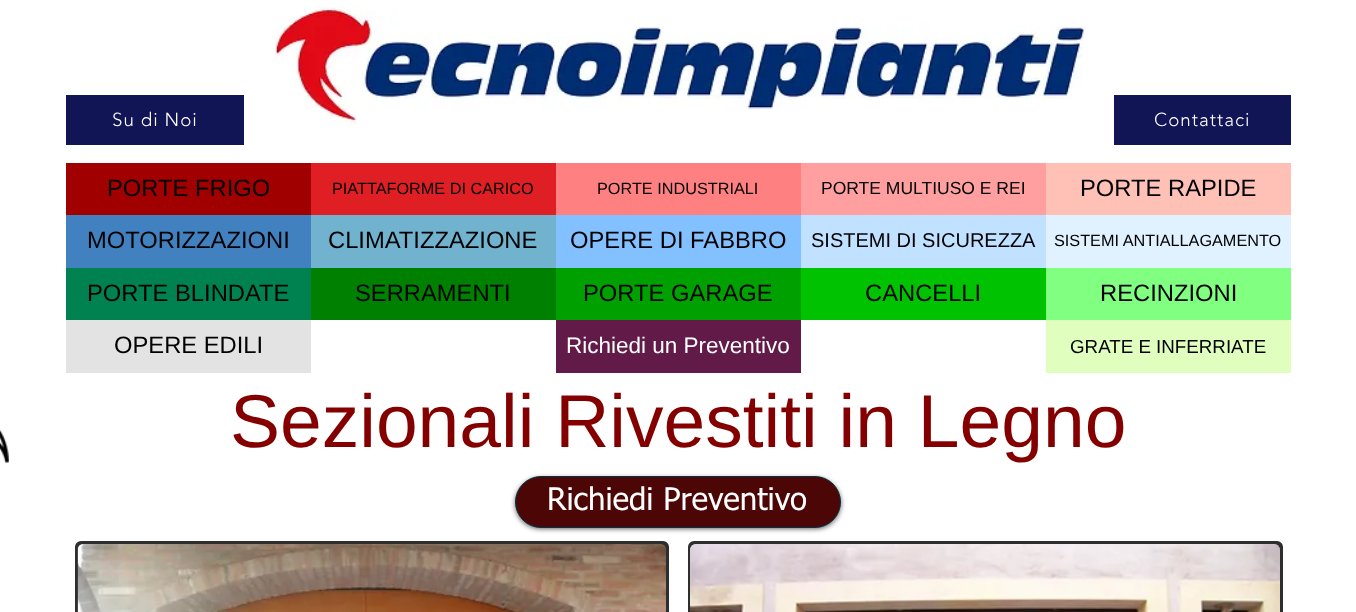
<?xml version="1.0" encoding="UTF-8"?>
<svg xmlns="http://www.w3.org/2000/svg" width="1356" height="612">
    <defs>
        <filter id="blur1" x="-50%" y="-200%" width="200%" height="500%"><feGaussianBlur stdDeviation="2.5"/></filter>
    </defs>
    <rect width="100%" height="100%" fill="#FFFFFF"/>
    <rect x="66" y="95" width="178" height="50" fill="#111555"/>
    <text x="112" y="126" font-family="'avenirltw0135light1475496'" font-size="18.75" font-weight="300" letter-spacing="1" fill="#FFFFFF">Su di Noi</text>
    <image x="274" y="7" width="812" height="119" href="img_01.png"/>
    <rect x="1114" y="95" width="177" height="50" fill="#111555"/>
    <text x="1154" y="126" font-family="'avenirltw0135light1475496'" font-size="18.75" font-weight="300" letter-spacing="1" fill="#FFFFFF">Contattaci</text>
    <rect x="66" y="163" width="245" height="52" fill="#A00000"/>
    <text x="107" y="196" font-family="Liberation Sans" font-size="23.75" fill="#000000">PORTE FRIGO</text>
    <rect x="311" y="163" width="245" height="52" fill="#E01F25"/>
    <text x="332" y="194" font-family="Liberation Sans" font-size="16.25" fill="#000000">PIATTAFORME DI CARICO</text>
    <rect x="556" y="163" width="245" height="52" fill="#FF8080"/>
    <text x="597" y="194" font-family="Liberation Sans" font-size="16.25" fill="#000000">PORTE INDUSTRIALI</text>
    <rect x="801" y="163" width="245" height="52" fill="#FF9F9F"/>
    <text x="821" y="194" font-family="Liberation Sans" font-size="17.5" fill="#000000">PORTE MULTIUSO E REI</text>
    <rect x="1046" y="163" width="245" height="52" fill="#FFC0B6"/>
    <text x="1080" y="196" font-family="Liberation Sans" font-size="23.75" fill="#000000">PORTE RAPIDE</text>
    <rect x="66" y="215" width="245" height="53" fill="#4181C0"/>
    <text x="87" y="248" font-family="Liberation Sans" font-size="23.75" fill="#000000">MOTORIZZAZIONI</text>
    <rect x="311" y="215" width="245" height="53" fill="#71B2CF"/>
    <text x="328" y="248" font-family="Liberation Sans" font-size="23.75" fill="#000000">CLIMATIZZAZIONE</text>
    <rect x="556" y="215" width="245" height="53" fill="#82C0FF"/>
    <text x="570" y="248" font-family="Liberation Sans" font-size="23.75" fill="#000000">OPERE DI FABBRO</text>
    <rect x="801" y="215" width="245" height="53" fill="#C0E1FF"/>
    <text x="811" y="247" font-family="Liberation Sans" font-size="20" fill="#000000">SISTEMI DI SICUREZZA</text>
    <rect x="1046" y="215" width="245" height="53" fill="#E0F1FF"/>
    <text x="1054" y="246" font-family="Liberation Sans" font-size="16.25" fill="#000000">SISTEMI ANTIALLAGAMENTO</text>
    <rect x="66" y="268" width="245" height="52" fill="#008250"/>
    <text x="87" y="301" font-family="Liberation Sans" font-size="23.75" fill="#000000">PORTE BLINDATE</text>
    <rect x="311" y="268" width="245" height="52" fill="#008000"/>
    <text x="355" y="301" font-family="Liberation Sans" font-size="23.75" fill="#000000">SERRAMENTI</text>
    <rect x="556" y="268" width="245" height="52" fill="#00A000"/>
    <text x="583" y="301" font-family="Liberation Sans" font-size="23.75" fill="#000000">PORTE GARAGE</text>
    <rect x="801" y="268" width="245" height="52" fill="#00C200"/>
    <text x="865" y="301" font-family="Liberation Sans" font-size="23.75" fill="#000000">CANCELLI</text>
    <rect x="1046" y="268" width="245" height="52" fill="#80FF80"/>
    <text x="1100" y="301" font-family="Liberation Sans" font-size="23.75" fill="#000000">RECINZIONI</text>
    <rect x="66" y="320" width="245" height="53" fill="#E3E3E3"/>
    <text x="114" y="353" font-family="Liberation Sans" font-size="23.75" fill="#000000">OPERE EDILI</text>
    <rect x="556" y="320" width="245" height="53" fill="#621B49"/>
    <text x="566" y="353" font-family="Liberation Sans" font-size="22.5" fill="#FFFFFF">Richiedi un Preventivo</text>
    <rect x="1046" y="320" width="245" height="53" fill="#E0FFBF"/>
    <text x="1070" y="353" font-family="Liberation Sans" font-size="18.75" fill="#000000">GRATE E INFERRIATE</text>
    <image x="0" y="429" width="9" height="34" href="img_02.png"/>
    <text x="230" y="447" font-family="Liberation Sans" font-size="75" fill="#840000">Sezionali Rivestiti in Legno</text>
    <rect x="515" y="478" width="326" height="51" rx="25.5" fill="#000000" fill-opacity="0.6" filter="url(#blur1)"/>
    <rect x="515.5" y="476.5" width="325" height="51" rx="25.5" fill="#4D0606" stroke="#003448"/>
    <text x="547" y="510" font-family="tahoma" font-size="31.25" fill="#FFFFFF">Richiedi Preventivo</text>
    <rect x="76.5" y="542.5" width="591" height="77" rx="4.5" fill="#2F2E2E" stroke="#2F2E2E" stroke-width="3"/>
    <image x="77" y="544" width="589" height="68" href="img_03.png"/>
    <rect x="689.5" y="542.5" width="592" height="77" rx="4.5" fill="#2F2E2E" stroke="#2F2E2E" stroke-width="3"/>
    <image x="690" y="544" width="590" height="68" href="img_04.png"/>
</svg>
